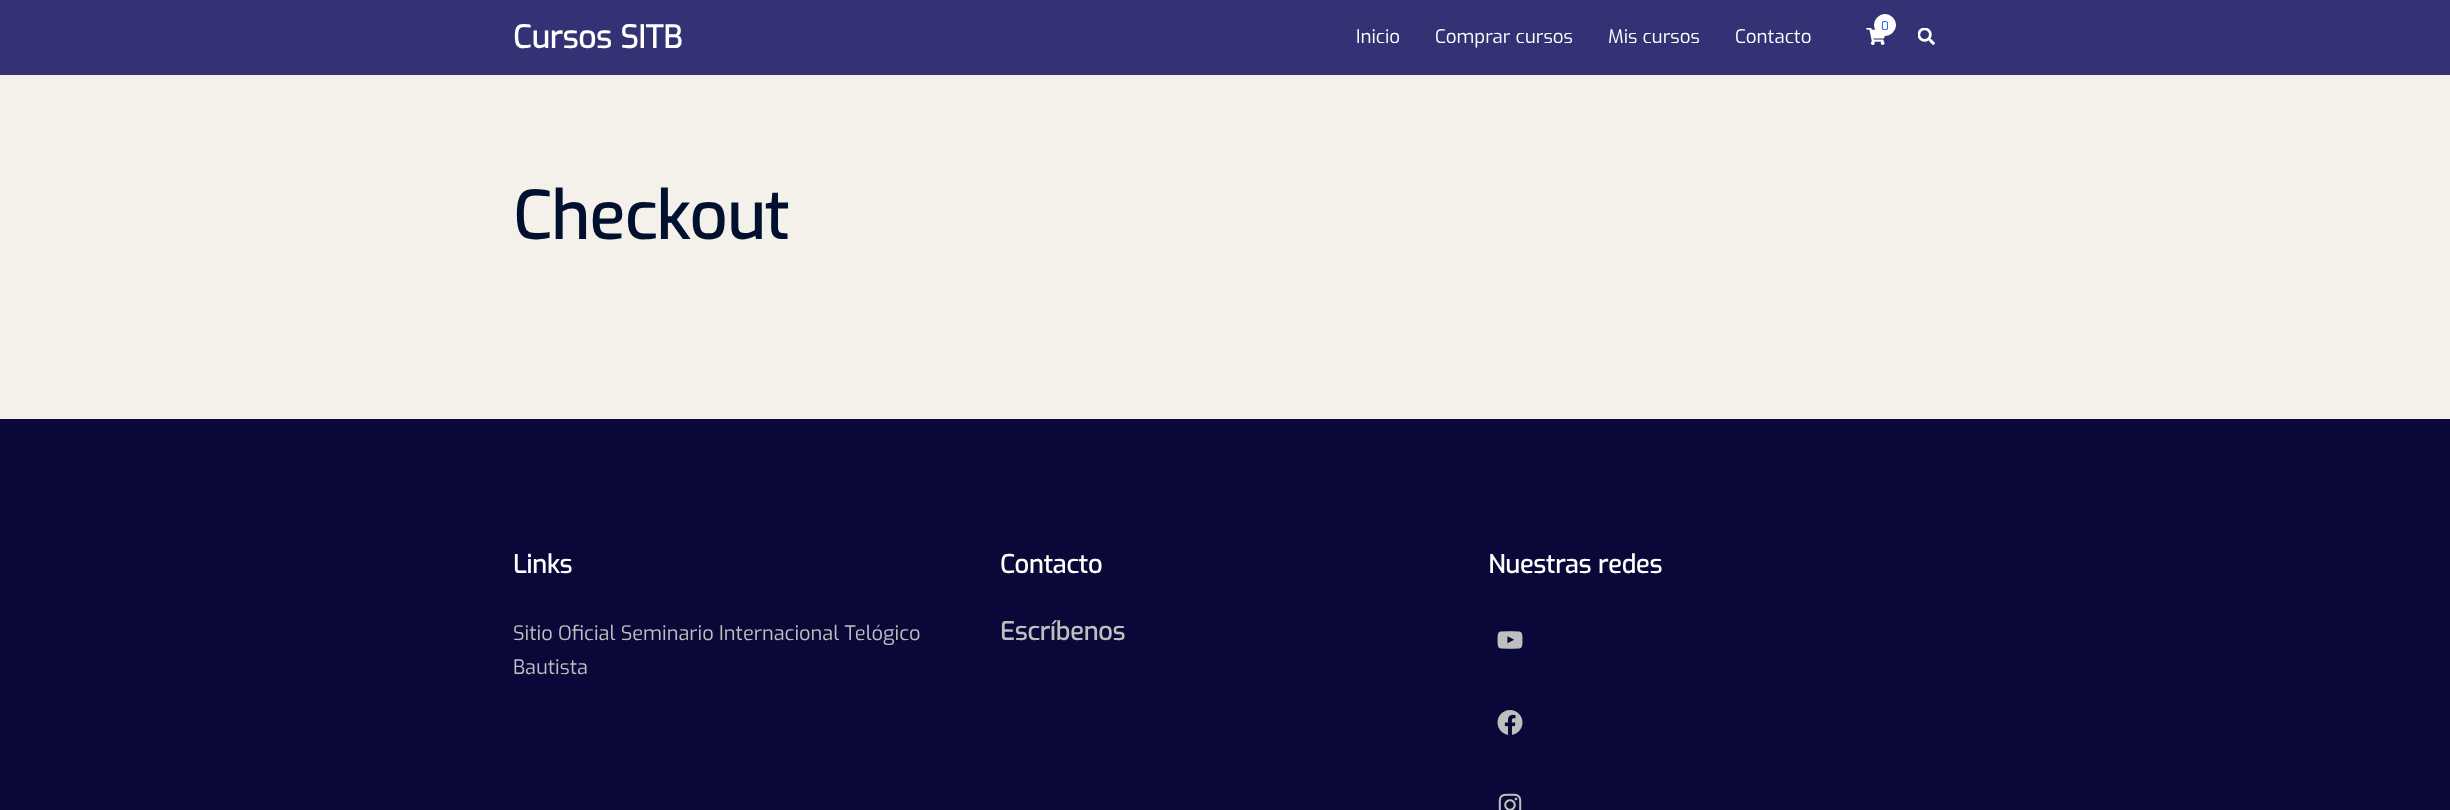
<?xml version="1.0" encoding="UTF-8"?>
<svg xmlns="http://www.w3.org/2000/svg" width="2450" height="810">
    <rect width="100%" height="100%" fill="#F4F1EA"/>
    <rect x="0" y="0" width="2450" height="75" fill="#323275"/>
    <text x="513" y="48" font-family="Exo" font-size="31.25" font-weight="700" fill="#FFFFFF">Cursos SITB</text>
    <text x="1356" y="43" font-family="Exo" font-size="18.75" fill="#FFFFFF">Inicio</text>
    <text x="1435" y="43" font-family="Exo" font-size="18.75" fill="#FFFFFF">Comprar cursos</text>
    <text x="1608" y="43" font-family="Exo" font-size="18.75" fill="#FFFFFF">Mis cursos</text>
    <text x="1735" y="43" font-family="Exo" font-size="18.75" fill="#FFFFFF">Contacto</text>
    <image x="1866" y="28" width="19" height="17" href="img_01.png"/>
    <circle cx="1885" cy="25" r="10.5" fill="#FFFFFF" stroke="#FFFFFF"/>
    <text x="1881" y="30" font-family="Exo" font-size="12" fill="#2D5BF6">0</text>
    <image x="1918" y="28" width="17" height="17" href="img_02.png"/>
    <text x="513" y="239" font-family="Exo" font-size="65" font-weight="700" fill="#00102E">Checkout</text>
    <rect x="0" y="419" width="2450" height="391" fill="#0A0838"/>
    <text x="513" y="573" font-family="Exo" font-size="25" font-weight="700" fill="#FFFFFF">Links</text>
    <text font-family="Exo" font-size="20" fill="#BFBFBF">
        <tspan x="513" y="640">Sitio Oficial Seminario Internacional Telógico</tspan>
        <tspan x="513" y="674">Bautista</tspan>
    </text>
    <text x="1000" y="573" font-family="Exo" font-size="25" font-weight="700" fill="#FFFFFF">Contacto</text>
    <text x="1000" y="640" font-family="Exo" font-size="25" font-weight="700" fill="#BFBFBF">Escríbenos</text>
    <text x="1488" y="573" font-family="Exo" font-size="25" font-weight="700" fill="#FFFFFF">Nuestras redes</text>
    <image x="1497" y="631" width="26" height="18" href="img_03.png"/>
    <image x="1497" y="710" width="26" height="25" href="img_04.png"/>
    <image x="1498" y="793" width="24" height="17" href="img_05.png"/>
</svg>
